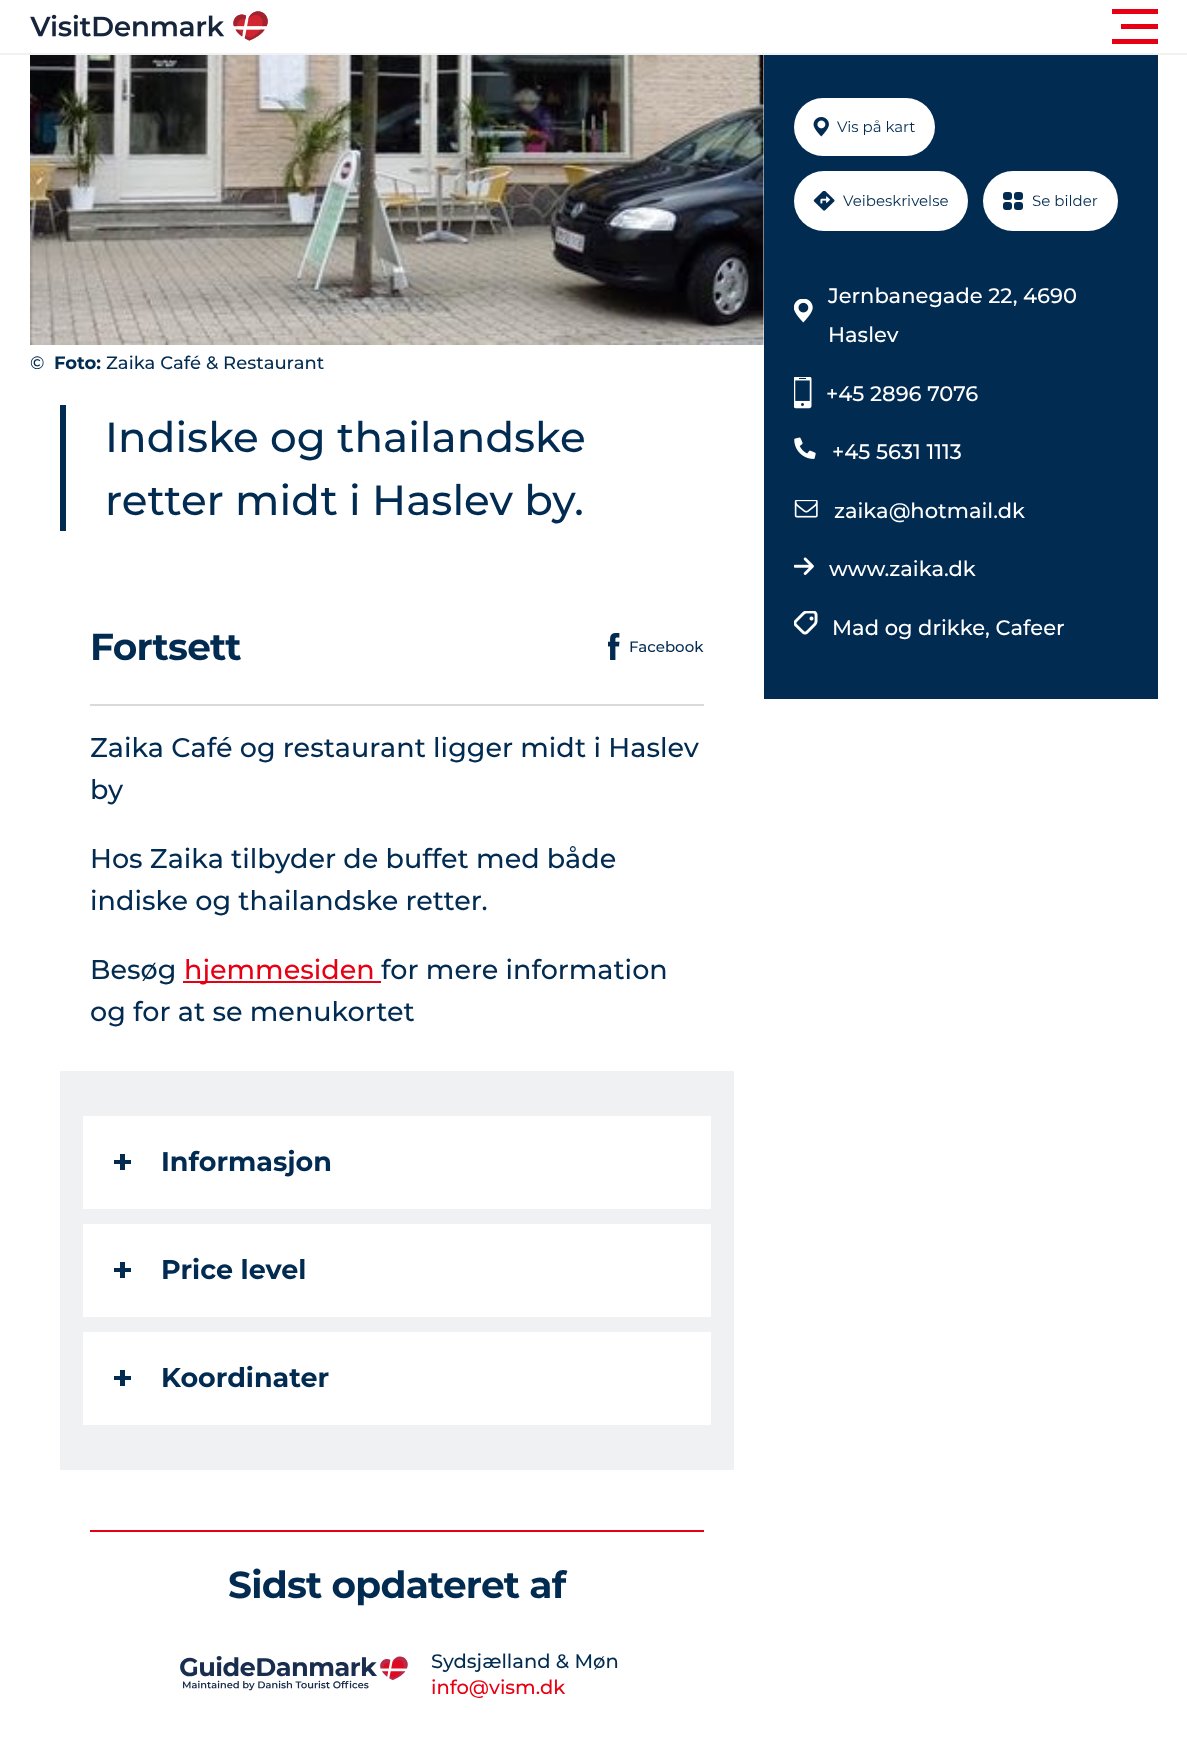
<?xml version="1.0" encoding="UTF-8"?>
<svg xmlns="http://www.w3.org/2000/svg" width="1187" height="1739">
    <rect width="100%" height="100%" fill="#FFFFFF"/>
    <rect x="0" y="53" width="1187" height="2" fill="#F0F1F3"/>
    <image x="30" y="11" width="238" height="30" href="img_01.png"/>
    <rect x="1112" y="9" width="46" height="5" fill="#E70013"/>
    <rect x="1121" y="24" width="37" height="5" fill="#E70013"/>
    <rect x="1112" y="39" width="46" height="5" fill="#E70013"/>
    <image x="30" y="55" width="734" height="290" href="img_02.png"/>
    <text x="30" y="369" font-family="Montserrat" font-size="18" font-weight="500" fill="#022B52">©</text>
    <text x="54" y="369" font-family="Montserrat" font-size="18" font-weight="700" fill="#022B52">Foto:</text>
    <text x="106" y="369" font-family="Montserrat" font-size="18" font-weight="500" fill="#022B52">Zaika Café &amp; Restaurant</text>
    <rect x="764" y="55" width="394" height="644" fill="#022B52"/>
    <rect x="794" y="98" width="141" height="58" rx="29" fill="#FFFFFF"/>
    <image x="813" y="117" width="16" height="20" href="img_03.png"/>
    <text x="837" y="132" font-family="Montserrat" font-size="15" fill="#022B52">Vis på kart</text>
    <rect x="794" y="171" width="174" height="60" rx="30" fill="#FFFFFF"/>
    <image x="813" y="191" width="22" height="20" href="img_04.png"/>
    <text x="843" y="206" font-family="Montserrat" font-size="15" fill="#022B52">Veibeskrivelse</text>
    <rect x="983" y="171" width="135" height="60" rx="30" fill="#FFFFFF"/>
    <rect x="1014" y="192" width="9" height="8" rx="3" fill="#022B52"/>
    <rect x="1014" y="202" width="9" height="8" rx="3" fill="#022B52"/>
    <rect x="1003" y="192" width="9" height="8" rx="3" fill="#022B52"/>
    <rect x="1003" y="202" width="9" height="8" rx="3" fill="#022B52"/>
    <text x="1032" y="206" font-family="Montserrat" font-size="15" fill="#022B52">Se bilder</text>
    <image x="794" y="299" width="19" height="24" href="img_05.png"/>
    <text font-family="Montserrat" font-size="21" font-weight="500" fill="#FFFFFF">
        <tspan x="828" y="303">Jernbanegade 22, 4690</tspan>
        <tspan x="828" y="342">Haslev</tspan>
    </text>
    <image x="794" y="377" width="18" height="32" href="img_06.png"/>
    <text x="826" y="401" font-family="Montserrat" font-size="21" font-weight="500" fill="#FFFFFF">+45 2896 7076</text>
    <image x="794" y="437" width="22" height="22" href="img_07.png"/>
    <text x="832" y="459" font-family="Montserrat" font-size="21" font-weight="500" fill="#FFFFFF">+45 5631 1113</text>
    <image x="794" y="500" width="24" height="18" href="img_08.png"/>
    <text x="834" y="518" font-family="Montserrat" font-size="21" font-weight="500" fill="#FFFFFF">zaika@hotmail.dk</text>
    <image x="794" y="557" width="20" height="18" href="img_09.png"/>
    <text x="829" y="576" font-family="Montserrat" font-size="21" font-weight="500" fill="#FFFFFF">www.zaika.dk</text>
    <image x="794" y="611" width="24" height="24" href="img_10.png"/>
    <text x="832" y="635" font-family="Montserrat" font-size="21" font-weight="500" fill="#FFFFFF">Mad og drikke, Cafeer</text>
    <rect x="60" y="405" width="6" height="126" fill="#022B52"/>
    <text font-family="Montserrat" font-size="42" font-weight="500" fill="#022B52">
        <tspan x="105" y="452">Indiske og thailandske</tspan>
        <tspan x="105" y="515">retter midt i Haslev by.</tspan>
    </text>
    <rect x="90" y="704" width="614" height="2" fill="#D8DADC"/>
    <text x="90" y="660" font-family="Montserrat" font-size="37.5" font-weight="700" letter-spacing="-0.75" fill="#022B52">Fortsett</text>
    <image x="608" y="633" width="12" height="27" href="img_11.png"/>
    <text x="629" y="652" font-family="Montserrat" font-size="15" font-weight="500" fill="#022B52">Facebook</text>
    <text font-family="Montserrat" font-size="27" font-weight="500" fill="#022B52">
        <tspan x="90" y="757">Zaika Café og restaurant ligger midt i Haslev</tspan>
        <tspan x="90" y="799">by</tspan>
    </text>
    <text font-family="Montserrat" font-size="27" font-weight="500" fill="#022B52">
        <tspan x="90" y="868">Hos Zaika tilbyder de buffet med både</tspan>
        <tspan x="90" y="910">indiske og thailandske retter.</tspan>
    </text>
    <text x="90" y="979" font-family="Montserrat" font-size="27" font-weight="500" fill="#022B52">Besøg</text>
    <rect x="183" y="981" width="198" height="2" fill="#E70013"/>
    <text x="184" y="979" font-family="Montserrat" font-size="27" font-weight="500" fill="#E70013">hjemmesiden</text>
    <text x="381" y="979" font-family="Montserrat" font-size="27" font-weight="500" fill="#022B52">for mere information</text>
    <text x="90" y="1021" font-family="Montserrat" font-size="27" font-weight="500" fill="#022B52">og for at se menukortet</text>
    <rect x="60" y="1071" width="674" height="399" fill="#EFF1F3"/>
    <rect x="83" y="1116" width="628" height="93" fill="#FFFFFF"/>
    <rect x="114" y="1160" width="17" height="4" fill="#022B52"/>
    <rect x="120" y="1154" width="5" height="16" fill="#022B52"/>
    <text x="161" y="1171" font-family="Montserrat" font-size="27" font-weight="700" fill="#022B52">Informasjon</text>
    <rect x="83" y="1224" width="628" height="93" fill="#FFFFFF"/>
    <rect x="114" y="1268" width="17" height="4" fill="#022B52"/>
    <rect x="120" y="1262" width="5" height="16" fill="#022B52"/>
    <text x="161" y="1279" font-family="Montserrat" font-size="27" font-weight="700" fill="#022B52">Price level</text>
    <rect x="83" y="1332" width="628" height="93" fill="#FFFFFF"/>
    <rect x="114" y="1376" width="17" height="4" fill="#022B52"/>
    <rect x="120" y="1370" width="5" height="16" fill="#022B52"/>
    <text x="161" y="1387" font-family="Montserrat" font-size="27" font-weight="700" fill="#022B52">Koordinater</text>
    <rect x="90" y="1530" width="614" height="2" fill="#E70013"/>
    <text x="228" y="1598" font-family="Montserrat" font-size="37.5" font-weight="700" letter-spacing="-0.75" fill="#022B52">Sidst opdateret af</text>
    <image x="180" y="1656" width="228" height="35" href="img_12.png"/>
    <text x="431" y="1668" font-family="Montserrat" font-size="19.5" font-weight="500" fill="#022B52">Sydsjælland &amp; Møn</text>
    <text x="431" y="1694" font-family="Montserrat" font-size="19.5" font-weight="500" fill="#E70013">info@vism.dk</text>
</svg>
